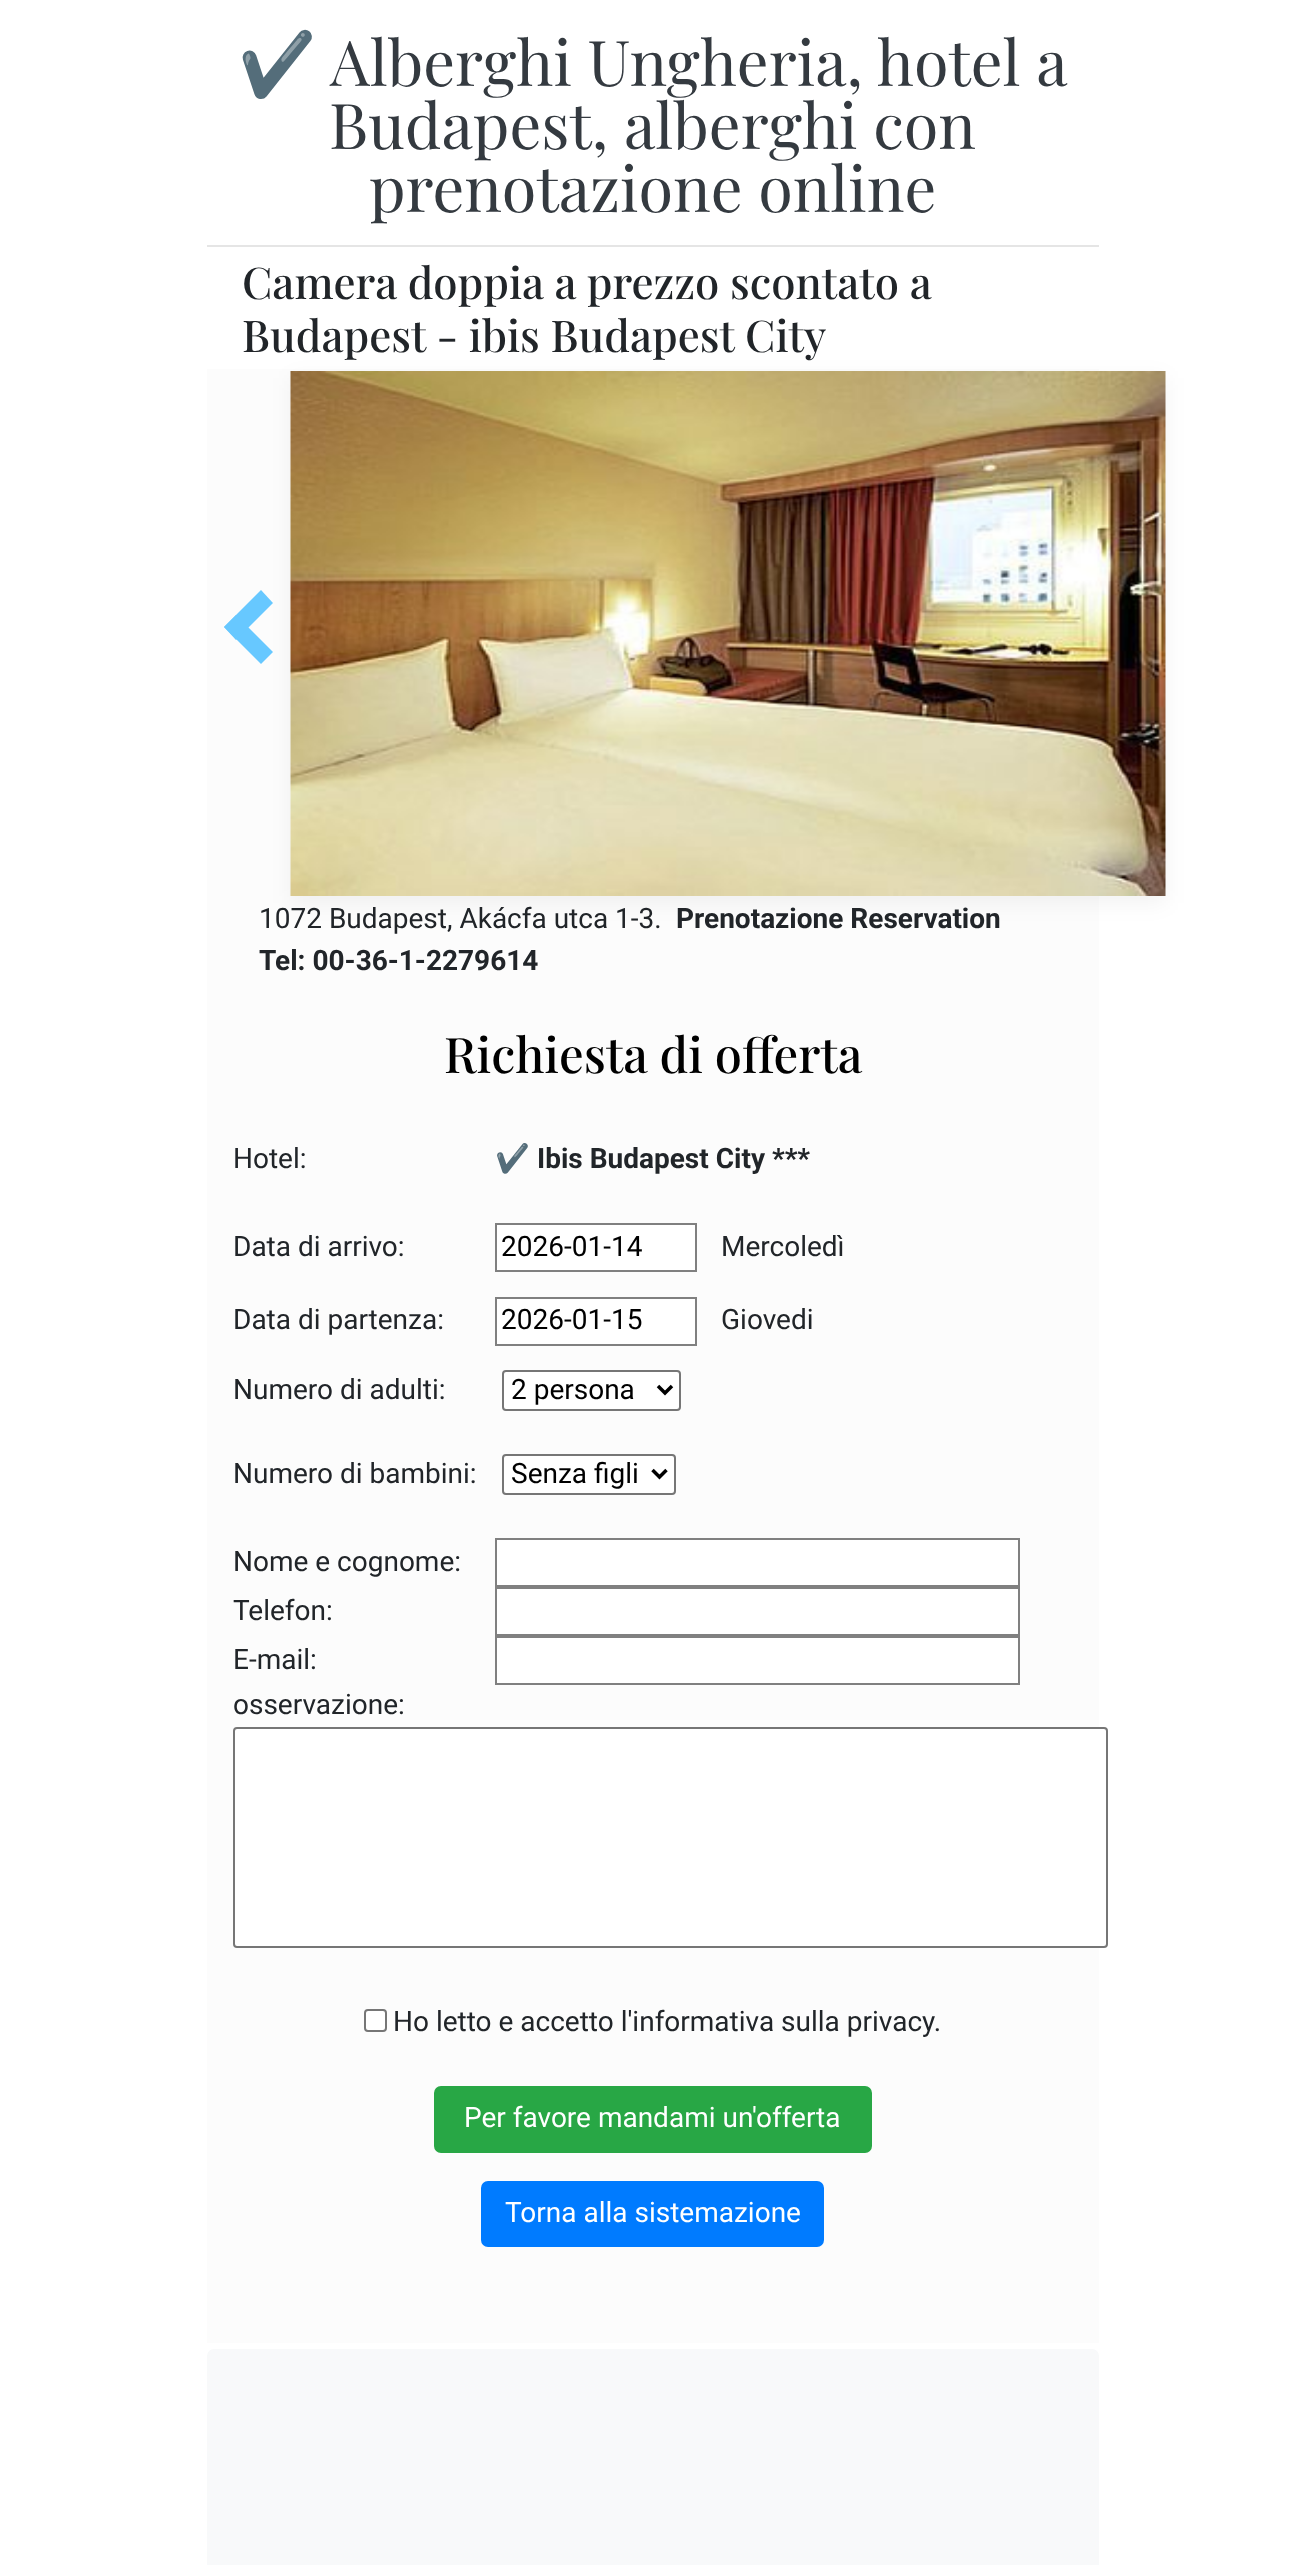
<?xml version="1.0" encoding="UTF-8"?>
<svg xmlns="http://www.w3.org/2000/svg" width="1305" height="2565">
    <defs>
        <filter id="blur1" x="-50%" y="-200%" width="200%" height="500%"><feGaussianBlur stdDeviation="10.5"/></filter>
    </defs>
    <rect width="100%" height="100%" fill="#FFFFFF"/>
    <rect x="207" y="245" width="892" height="2" fill="#E5E5E5"/>
    <text x="238" y="86" font-family="Noto Color Emoji" font-size="63" fill="#343A40">✔️</text>
    <text x="330" y="86" font-family="Playfair Display" font-size="63" fill="#343A40">Alberghi Ungheria, hotel a</text>
    <text x="329" y="149" font-family="Playfair Display" font-size="63" fill="#343A40">Budapest, alberghi con</text>
    <text x="369" y="212" font-family="Playfair Display" font-size="63" fill="#343A40">prenotazione online</text>
    <text font-family="Playfair Display" font-size="43.75" font-weight="500" fill="#212529">
        <tspan x="242" y="299">Camera doppia a prezzo scontato a</tspan>
        <tspan x="242" y="352">Budapest - ibis Budapest City</tspan>
    </text>
    <rect x="207" y="369" width="892" height="1974" fill="#FCFCFC"/>
    <rect x="291" y="378" width="875" height="525" fill="#000000" fill-opacity="0.05" filter="url(#blur1)"/>
    <path d="M 273 652 L 261 664 L 224 627 L 236 615 Z" fill="#67C8FF"/>
    <path d="M 273 603 L 236 640 L 224 627 L 261 590 Z" fill="#67C8FF"/>
    <image x="290" y="371" width="876" height="525" href="img_01.png"/>
    <text x="259" y="928" font-family="Roboto" font-size="28" fill="#212529">1072 Budapest, Akácfa utca 1-3.</text>
    <text x="676" y="928" font-family="Roboto" font-size="28" font-weight="700" fill="#212529">Prenotazione Reservation</text>
    <text x="259" y="970" font-family="Roboto" font-size="28" font-weight="700" fill="#212529">Tel: 00-36-1-2279614</text>
    <text x="444" y="1073" font-family="Playfair Display" font-size="49" font-weight="500" fill="#000000">Richiesta di offerta</text>
    <text x="233" y="1168" font-family="Roboto" font-size="28" fill="#212529">Hotel:</text>
    <text x="495" y="1168" font-family="Noto Color Emoji" font-size="28" font-weight="700" fill="#212529">✔️</text>
    <text x="537" y="1168" font-family="Roboto" font-size="28" font-weight="700" fill="#212529">Ibis Budapest City ***</text>
    <text x="233" y="1256" font-family="Roboto" font-size="28" fill="#212529">Data di arrivo:</text>
    <rect x="496" y="1224" width="200" height="47" fill="#FFFFFF" stroke="#808080" stroke-width="2"/>
    <text x="501" y="1256" font-family="Roboto" font-size="28" fill="#000000">2026-01-14</text>
    <text x="721" y="1256" font-family="Roboto" font-size="28" fill="#212529">Mercoledì</text>
    <text x="233" y="1329" font-family="Roboto" font-size="28" fill="#212529">Data di partenza:</text>
    <rect x="496" y="1298" width="200" height="47" fill="#FFFFFF" stroke="#808080" stroke-width="2"/>
    <text x="501" y="1329" font-family="Roboto" font-size="28" fill="#000000">2026-01-15</text>
    <text x="721" y="1329" font-family="Roboto" font-size="28" fill="#212529">Giovedi</text>
    <text x="233" y="1399" font-family="Roboto" font-size="28" fill="#212529">Numero di adulti:</text>
    <rect x="503" y="1371" width="177" height="39" rx="3" fill="#FFFFFF" stroke="#767676" stroke-width="2"/>
    <path d="M 658 1386 L 665 1393 L 672 1386" fill="none" stroke="#000000" stroke-width="3.5"/>
    <text x="511" y="1399" font-family="Roboto" font-size="28" fill="#000000">2 persona</text>
    <text x="233" y="1483" font-family="Roboto" font-size="28" fill="#212529">Numero di bambini:</text>
    <rect x="503" y="1455" width="172" height="39" rx="3" fill="#FFFFFF" stroke="#767676" stroke-width="2"/>
    <path d="M 652.5 1470 L 659.5 1477 L 666.5 1470" fill="none" stroke="#000000" stroke-width="3.5"/>
    <text x="511" y="1483" font-family="Roboto" font-size="28" fill="#000000">Senza figli</text>
    <text x="233" y="1571" font-family="Roboto" font-size="28" fill="#212529">Nome e cognome:</text>
    <rect x="496" y="1539" width="523" height="47" fill="#FFFFFF" stroke="#808080" stroke-width="2"/>
    <text x="233" y="1620" font-family="Roboto" font-size="28" fill="#212529">Telefon:</text>
    <rect x="496" y="1588" width="523" height="47" fill="#FFFFFF" stroke="#808080" stroke-width="2"/>
    <text x="233" y="1669" font-family="Roboto" font-size="28" fill="#212529">E-mail:</text>
    <rect x="496" y="1637" width="523" height="47" fill="#FFFFFF" stroke="#808080" stroke-width="2"/>
    <text x="233" y="1714" font-family="Roboto" font-size="28" fill="#212529">osservazione:</text>
    <rect x="234" y="1728" width="873" height="219" rx="3" fill="#FFFFFF" stroke="#767676" stroke-width="2"/>
    <rect x="365" y="2010" width="21" height="21" rx="3" fill="#FFFFFF" stroke="#767676" stroke-width="2"/>
    <text x="393" y="2031" font-family="Roboto" font-size="28" fill="#212529">Ho letto e accetto l'informativa sulla privacy.</text>
    <rect x="435" y="2087" width="436" height="65" rx="6" fill="#28A745" stroke="#28A745" stroke-width="2"/>
    <text x="464" y="2127" font-family="Roboto" font-size="28" fill="#FFFFFF">Per favore mandami un'offerta</text>
    <rect x="482" y="2182" width="341" height="64" rx="6" fill="#007BFF" stroke="#007BFF" stroke-width="2"/>
    <text x="505" y="2222" font-family="Roboto" font-size="28" fill="#FFFFFF">Torna alla sistemazione</text>
    <rect x="207" y="2349" width="892" height="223" rx="7" fill="#F8F9FA"/>
</svg>
